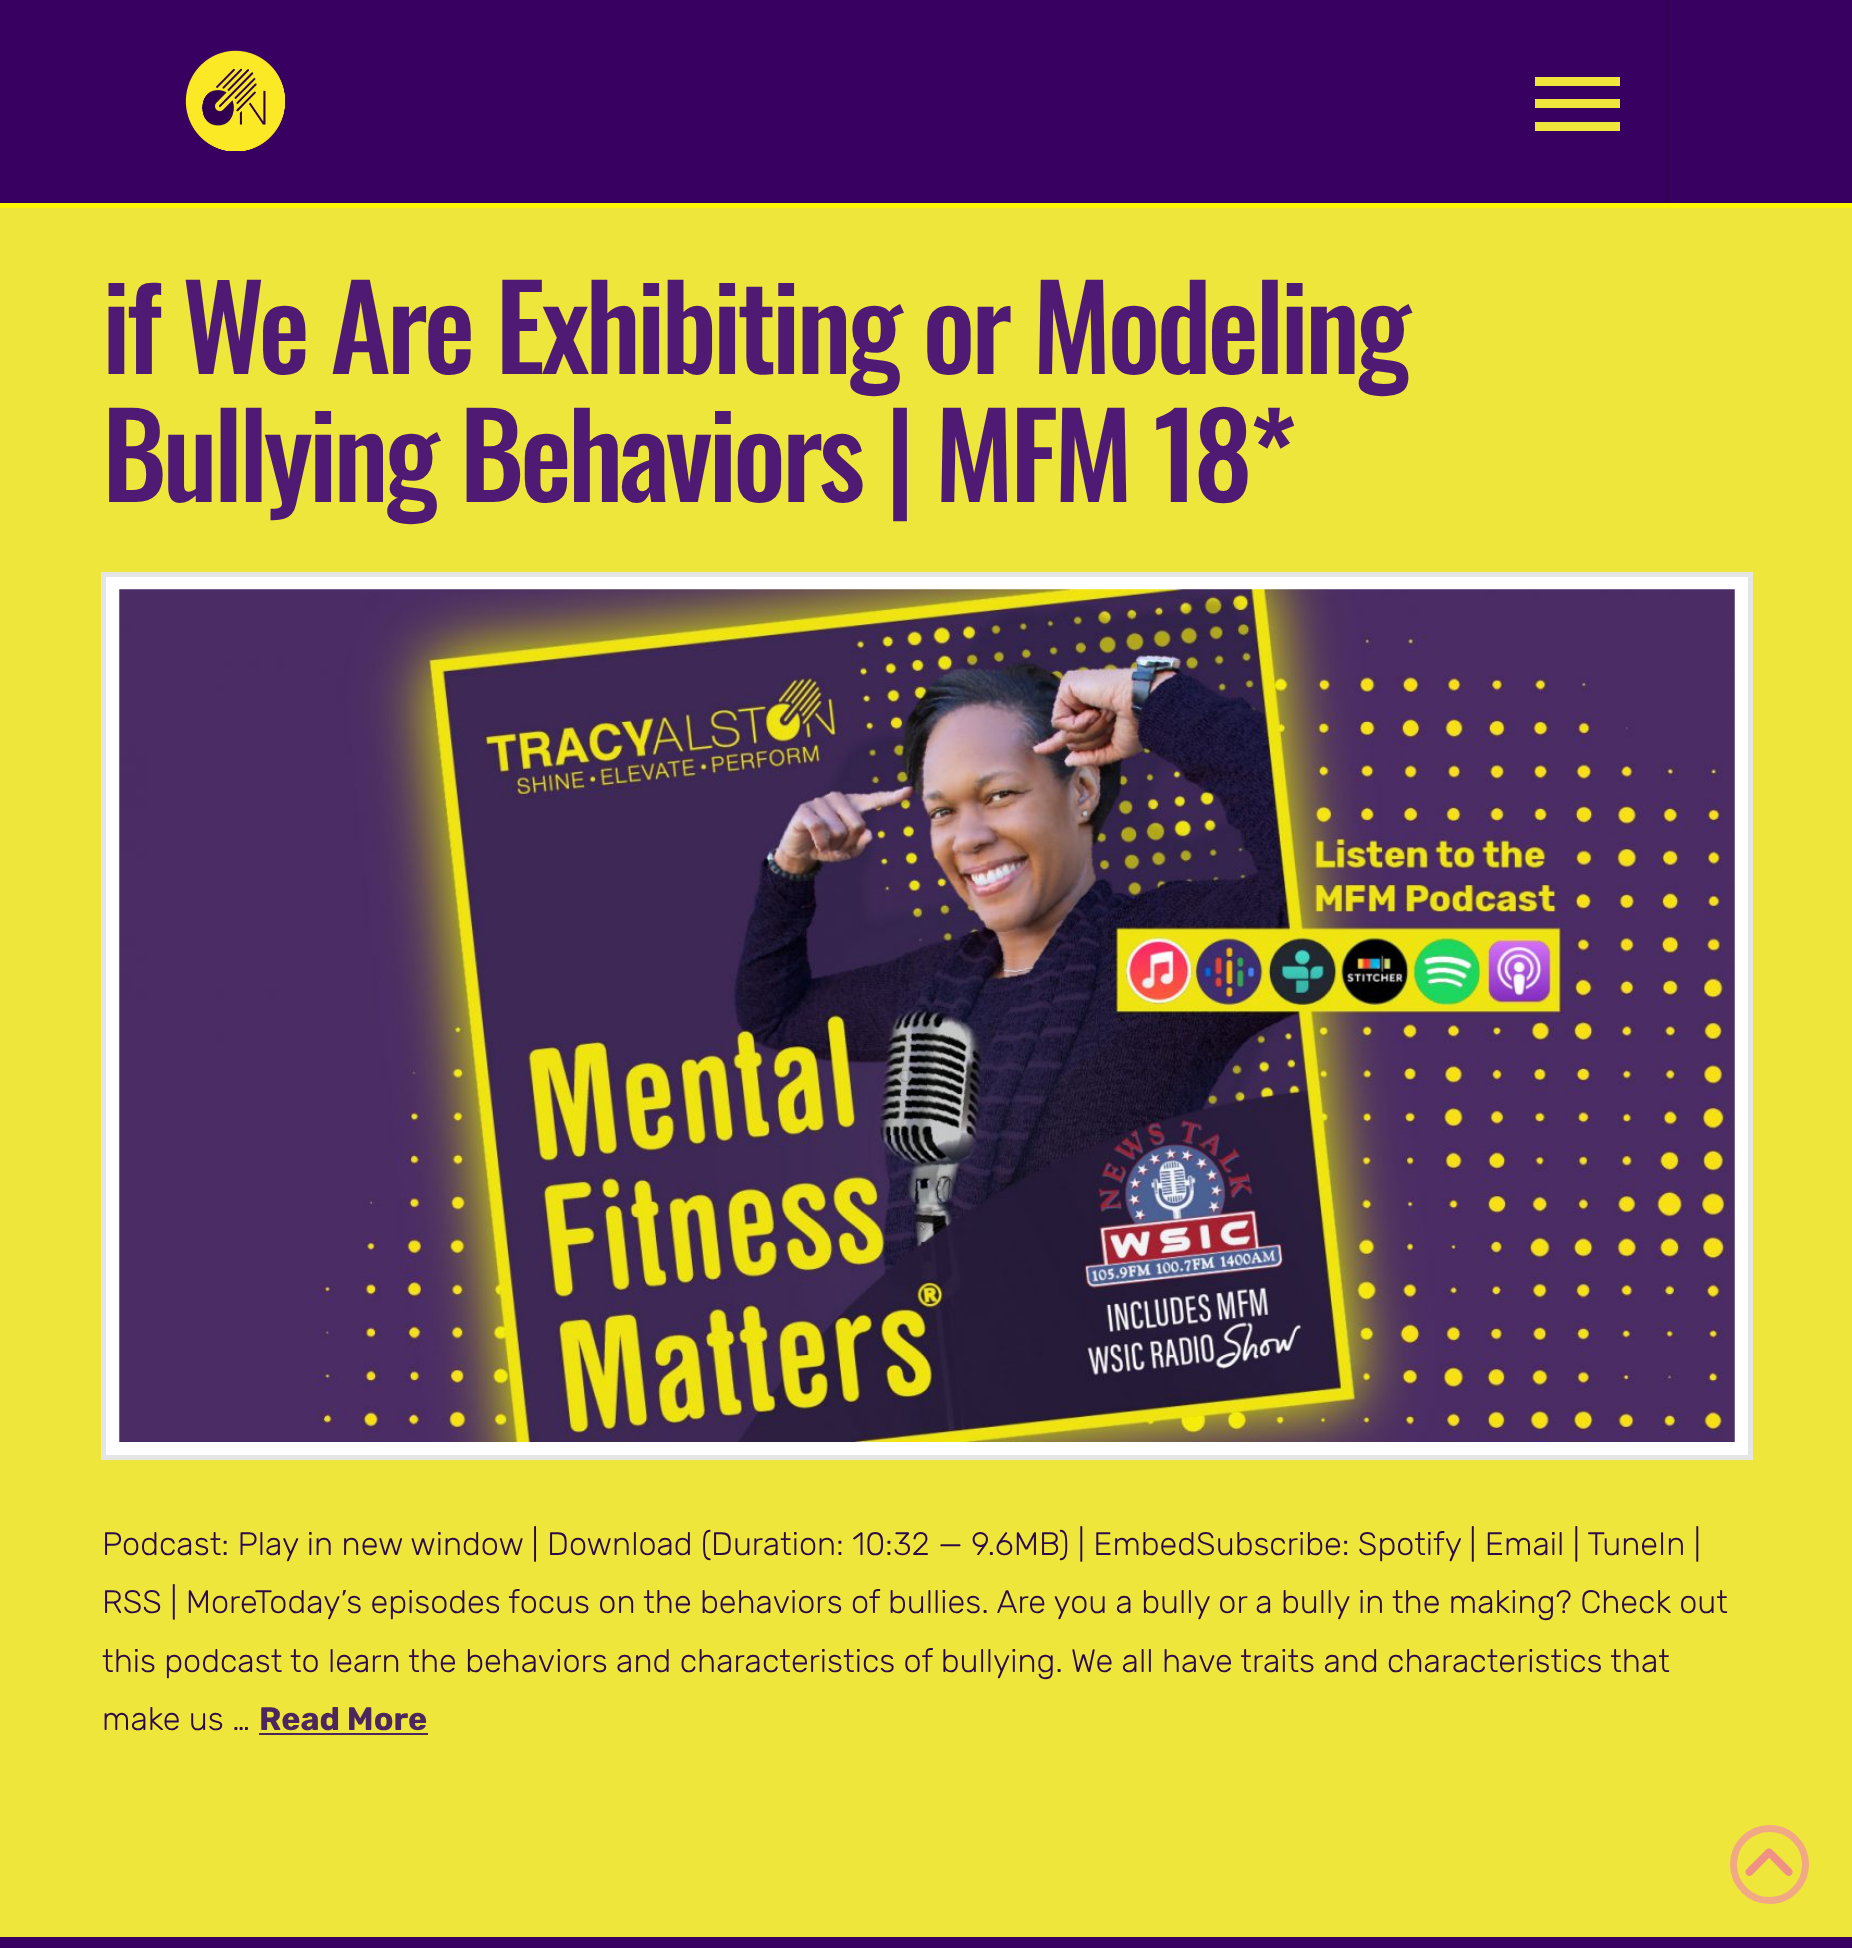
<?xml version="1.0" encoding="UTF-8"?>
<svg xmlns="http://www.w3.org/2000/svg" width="1852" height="1948">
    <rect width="100%" height="100%" fill="#EFE63C"/>
    <rect x="0" y="0" width="1852" height="203" fill="#380060"/>
    <rect x="0" y="203" width="1852" height="5" fill="#FFF800"/>
    <image x="185" y="50" width="100" height="101" href="img_01.png"/>
    <rect x="1535" y="77" width="85" height="9" fill="#EFE63C"/>
    <rect x="1535" y="99" width="85" height="9" fill="#EFE63C"/>
    <rect x="1535" y="122" width="85" height="9" fill="#EFE63C"/>
    <rect x="1665" y="0" width="4" height="203" fill="#320055"/>
    <text font-family="Oswald" font-size="116.25" font-weight="500" letter-spacing="-4.1" fill="#4E1A74">
        <tspan x="102" y="374">if We Are Exhibiting or Modeling</tspan>
        <tspan x="102" y="502">Bullying Behaviors | MFM 18*</tspan>
    </text>
    <rect x="103.5" y="574.5" width="1647" height="883" fill="#FFFFFF" stroke="#E5E5E5" stroke-width="5"/>
    <image x="119" y="589" width="1616" height="853" href="img_02.png"/>
    <text font-family="Rubik" font-size="32.4" font-weight="300" fill="#2E0949">
        <tspan x="102" y="1555">Podcast: Play in new window | Download (Duration: 10:32 — 9.6MB) | EmbedSubscribe: Spotify | Email | TuneIn |</tspan>
        <tspan x="102" y="1613">RSS | MoreToday’s episodes focus on the behaviors of bullies. Are you a bully or a bully in the making? Check out</tspan>
        <tspan x="102" y="1672">this podcast to learn the behaviors and characteristics of bullying. We all have traits and characteristics that</tspan>
        <tspan x="102" y="1730">make us …</tspan>
    </text>
    <text x="259" y="1730" font-family="Rubik" font-size="32.4" font-weight="700" fill="#4C265D">Read More</text>
    <rect x="259" y="1733" width="169" height="2" fill="#4C265D"/>
    <rect x="0" y="1937" width="1852" height="11" fill="#380060"/>
    <circle cx="1769.5" cy="1864.5" r="36" fill="none" stroke="#F1A985" stroke-width="7"/>
    <image x="1745" y="1848" width="48" height="28" href="img_03.png"/>
</svg>
